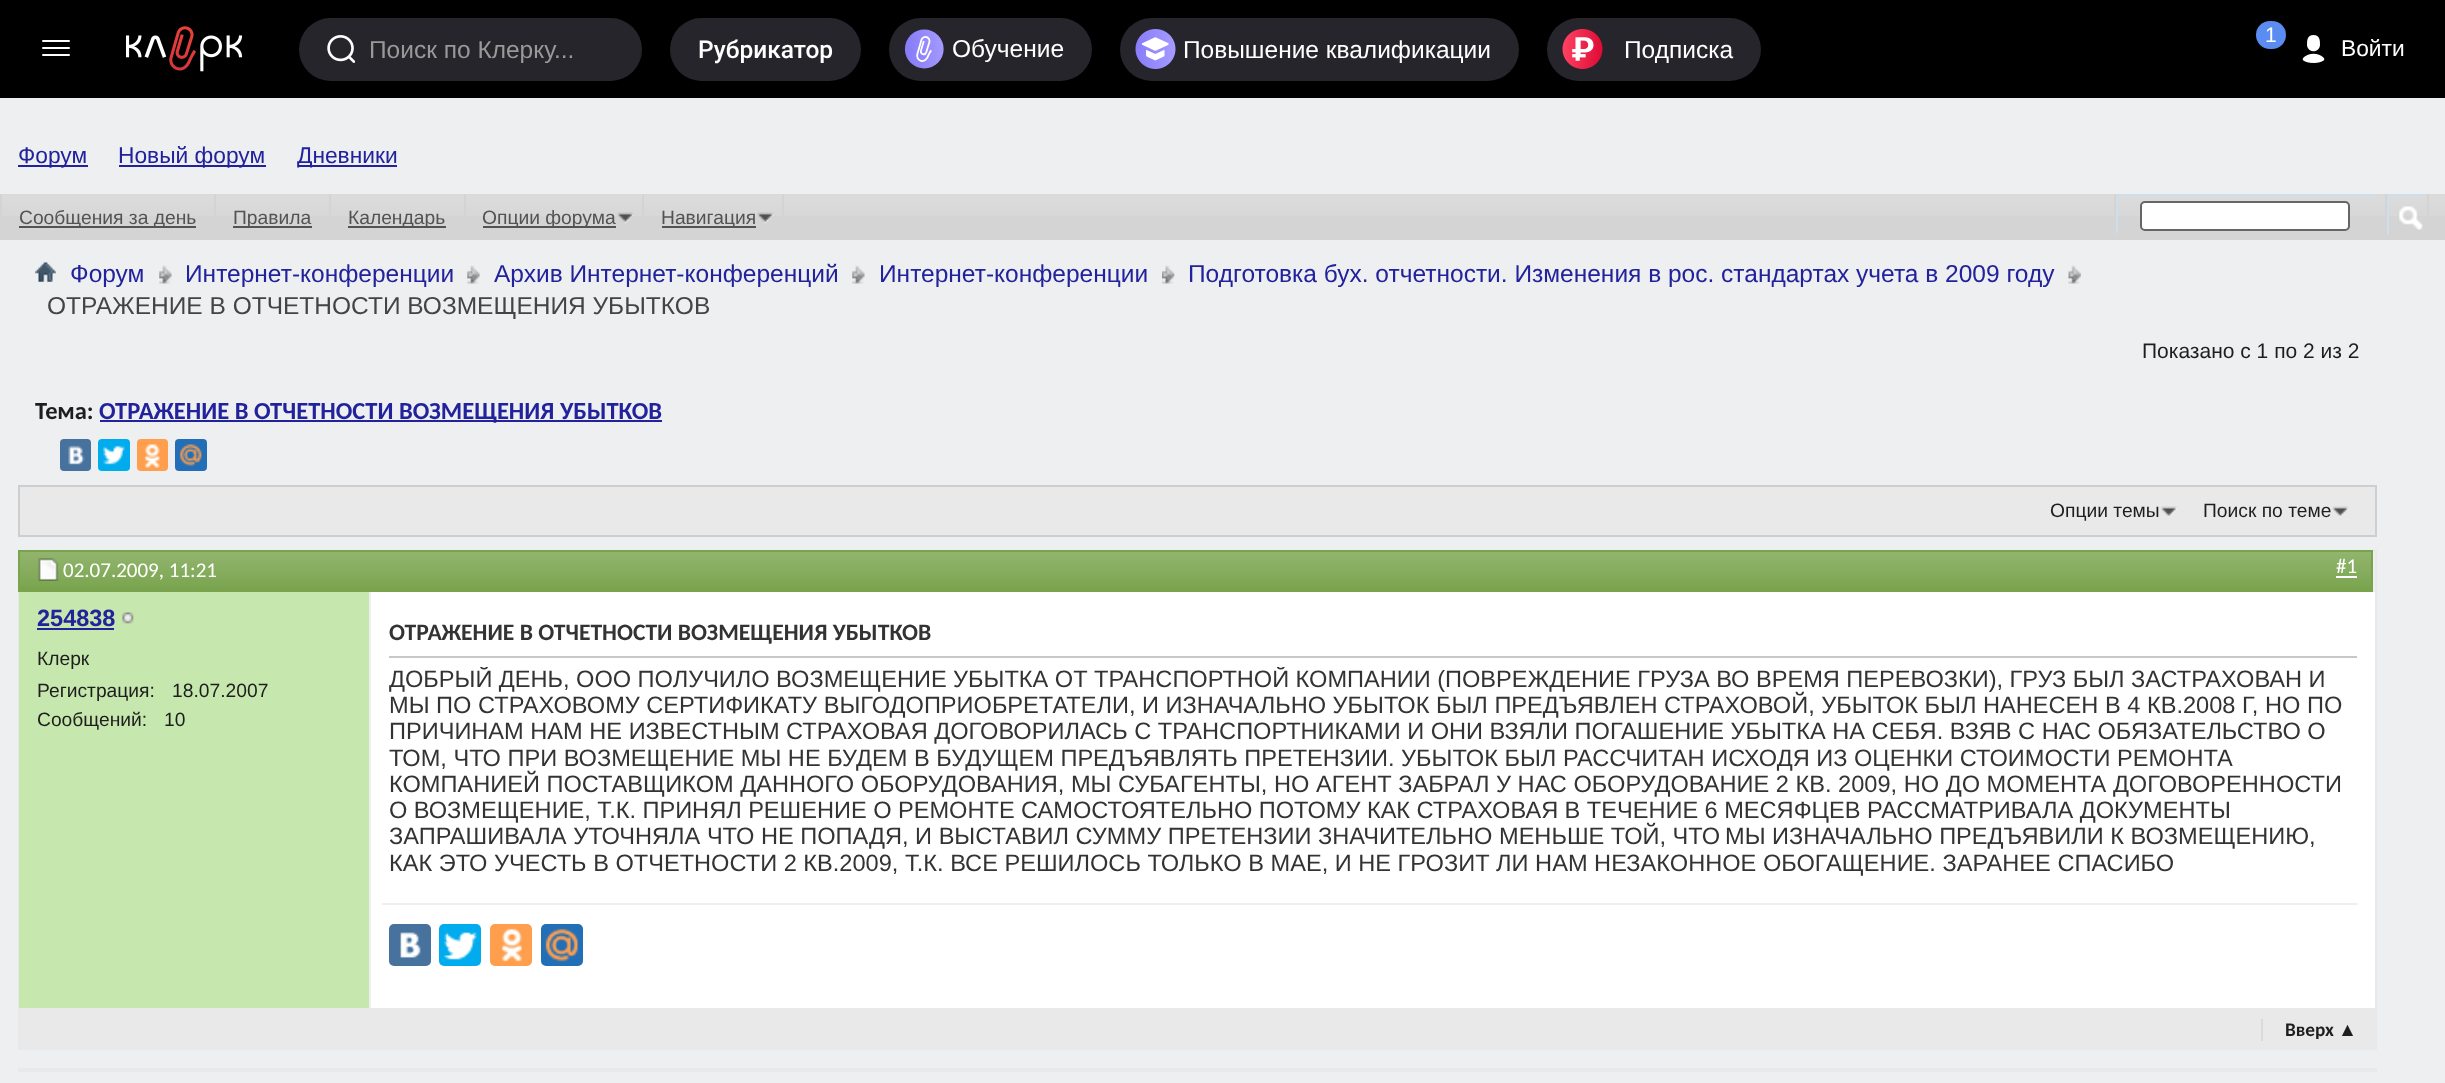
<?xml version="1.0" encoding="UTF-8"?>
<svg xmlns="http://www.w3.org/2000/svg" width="2445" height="1083">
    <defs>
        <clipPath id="clip1"><rect x="389" y="667" width="1968" height="210"/></clipPath>
    </defs>
    <rect width="100%" height="100%" fill="#EEEFF1"/>
    <rect x="0" y="0" width="2445" height="98" fill="#000000"/>
    <rect x="42" y="40" width="28" height="2" rx="1" fill="#FFFFFF"/>
    <rect x="42" y="47" width="28" height="2" rx="1" fill="#FFFFFF"/>
    <rect x="42" y="54" width="28" height="2" rx="1" fill="#FFFFFF"/>
    <image x="126" y="26" width="117" height="46" href="img_01.png"/>
    <rect x="299" y="18" width="343" height="63" rx="31.5" fill="#26252C"/>
    <image x="327" y="35" width="28" height="28" href="img_02.png"/>
    <text x="369" y="58" font-family="Liberation Sans" font-size="24.5" fill="#999999">Поиск по Клерку...</text>
    <rect x="670" y="18" width="191" height="63" rx="31.5" fill="#26252C"/>
    <text x="698" y="58" font-family="Roboto" font-size="24.5" font-weight="500" fill="#FFFFFF">Рубрикатор</text>
    <rect x="889" y="18" width="203" height="63" rx="31.5" fill="#26252C"/>
    <image x="904" y="29" width="40" height="40" href="img_03.png"/>
    <text x="952" y="57" font-family="Liberation Sans" font-size="24.5" fill="#FFFFFF">Обучение</text>
    <rect x="1120" y="18" width="399" height="63" rx="31.5" fill="#26252C"/>
    <image x="1135" y="29" width="41" height="40" href="img_04.png"/>
    <text x="1183" y="58" font-family="Liberation Sans" font-size="24.5" fill="#FFFFFF">Повышение квалификации</text>
    <rect x="1547" y="18" width="214" height="63" rx="31.5" fill="#26252C"/>
    <image x="1562" y="29" width="41" height="40" href="img_05.png"/>
    <text x="1624" y="58" font-family="Liberation Sans" font-size="24.5" fill="#FFFFFF">Подписка</text>
    <rect x="2256" y="21" width="30" height="28" rx="14" fill="#5A8CF1"/>
    <text x="2265" y="42" font-family="Liberation Sans" font-size="21" fill="#FFFFFF">1</text>
    <image x="2302" y="35" width="23" height="28" href="img_06.png"/>
    <text x="2341" y="56" font-family="Liberation Sans" font-size="22.75" fill="#FFFFFF">Войти</text>
    <rect x="18" y="165" width="70" height="2" fill="#22229C"/>
    <text x="18" y="163" font-family="Liberation Sans" font-size="22.75" fill="#22229C">Форум</text>
    <rect x="119" y="165" width="147" height="2" fill="#22229C"/>
    <text x="118" y="163" font-family="Liberation Sans" font-size="22.75" fill="#22229C">Новый форум</text>
    <rect x="298" y="165" width="99" height="2" fill="#22229C"/>
    <text x="297" y="163" font-family="Liberation Sans" font-size="22.75" fill="#22229C">Дневники</text>
    <rect x="0" y="194" width="2445" height="46" fill="#D4D4D4"/>
    <image x="2" y="194" width="2443" height="22" href="img_07.png"/>
    <rect x="214" y="194" width="2" height="22" fill="#D4D4D4"/>
    <rect x="19" y="226" width="177" height="2" fill="#535353"/>
    <text x="19" y="224" font-family="Liberation Sans" font-size="19.25" fill="#535353">Сообщения за день</text>
    <rect x="329" y="194" width="2" height="22" fill="#D4D4D4"/>
    <rect x="233" y="226" width="79" height="2" fill="#535353"/>
    <text x="233" y="224" font-family="Liberation Sans" font-size="19.25" fill="#535353">Правила</text>
    <rect x="464" y="194" width="2" height="22" fill="#D4D4D4"/>
    <rect x="348" y="226" width="98" height="2" fill="#535353"/>
    <text x="348" y="224" font-family="Liberation Sans" font-size="19.25" fill="#535353">Календарь</text>
    <rect x="642" y="194" width="2" height="22" fill="#D4D4D4"/>
    <rect x="483" y="226" width="133" height="2" fill="#535353"/>
    <text x="482" y="224" font-family="Liberation Sans" font-size="19.25" fill="#535353">Опции форума</text>
    <image x="617" y="212" width="17" height="12" href="img_08.png"/>
    <rect x="782" y="194" width="2" height="22" fill="#D4D4D4"/>
    <rect x="662" y="226" width="94" height="2" fill="#535353"/>
    <text x="661" y="224" font-family="Liberation Sans" font-size="19.25" fill="#535353">Навигация</text>
    <image x="757" y="212" width="17" height="12" href="img_08.png"/>
    <rect x="2114" y="194" width="2" height="22" fill="#D4D4D4"/>
    <rect x="2116" y="194" width="257" height="2" fill="#CEDFEB"/>
    <rect x="2116" y="194" width="2" height="39" fill="#CEDFEB"/>
    <rect x="2141" y="202" width="208" height="28" rx="4" fill="#FFFFFF" stroke="#666666" stroke-width="2"/>
    <rect x="2427" y="194" width="2" height="22" fill="#D4D4D4"/>
    <rect x="2385" y="194" width="2" height="22" fill="#D4D4D4"/>
    <rect x="2387" y="194" width="40" height="2" fill="#CEDFEB"/>
    <rect x="2387" y="194" width="2" height="41" fill="#CEDFEB"/>
    <image x="2399" y="206" width="24" height="24" href="img_09.png"/>
    <image x="35" y="262" width="21" height="20" href="img_10.png"/>
    <image x="159" y="265" width="13" height="19" href="img_11.png"/>
    <text x="70" y="282" font-family="Liberation Sans" font-size="24.5" fill="#22229C">Форум</text>
    <image x="467" y="265" width="13" height="19" href="img_12.png"/>
    <text x="185" y="282" font-family="Liberation Sans" font-size="24.5" fill="#22229C">Интернет-конференции</text>
    <image x="852" y="265" width="13" height="19" href="img_12.png"/>
    <text x="494" y="282" font-family="Liberation Sans" font-size="24.5" fill="#22229C">Архив Интернет-конференций</text>
    <image x="1162" y="265" width="13" height="19" href="img_13.png"/>
    <text x="879" y="282" font-family="Liberation Sans" font-size="24.5" fill="#22229C">Интернет-конференции</text>
    <image x="2068" y="265" width="13" height="19" href="img_14.png"/>
    <text x="1188" y="282" font-family="Liberation Sans" font-size="24.5" fill="#22229C">Подготовка бух. отчетности. Изменения в рос. стандартах учета в 2009 году</text>
    <text x="47" y="314" font-family="Liberation Sans" font-size="24.5" fill="#444444">ОТРАЖЕНИЕ В ОТЧЕТНОСТИ ВОЗМЕЩЕНИЯ УБЫТКОВ</text>
    <text x="2142" y="358" font-family="Liberation Sans" font-size="21" fill="#1E1E1E">Показано с 1 по 2 из 2</text>
    <text x="35" y="419" font-family="Carlito" font-size="24.5" font-weight="700" fill="#1E1E1E">Тема:</text>
    <rect x="100" y="420" width="562" height="2" fill="#22229C"/>
    <text x="99" y="419" font-family="Carlito" font-size="24.5" font-weight="700" fill="#22229C">ОТРАЖЕНИЕ В ОТЧЕТНОСТИ ВОЗМЕЩЕНИЯ УБЫТКОВ</text>
    <rect x="60" y="439" width="31" height="32" rx="4" fill="#48729E"/>
    <image x="68" y="445" width="17" height="20" href="img_15.png"/>
    <rect x="98" y="439" width="32" height="32" rx="4" fill="#00ACED"/>
    <image x="102" y="445" width="23" height="20" href="img_16.png"/>
    <rect x="137" y="439" width="31" height="32" rx="4" fill="#FF9F4D"/>
    <image x="144" y="444" width="16" height="24" href="img_17.png"/>
    <rect x="175" y="439" width="32" height="32" rx="4" fill="#226EB7"/>
    <image x="179" y="444" width="23" height="22" href="img_18.png"/>
    <rect x="19" y="486" width="2357" height="50" fill="#E9E9E9" stroke="#CECECE" stroke-width="2"/>
    <image x="2161" y="506" width="16" height="11" href="img_19.png"/>
    <text x="2050" y="517" font-family="Liberation Sans" font-size="19.25" fill="#1E1E1E">Опции темы</text>
    <image x="2332" y="506" width="17" height="11" href="img_20.png"/>
    <text x="2203" y="517" font-family="Liberation Sans" font-size="19.25" fill="#1E1E1E">Поиск по теме</text>
    <rect x="19" y="551" width="2357" height="498" fill="none" stroke="#E9E9E9" stroke-width="2"/>
    <rect x="20" y="552" width="2351" height="38" fill="#79A44D"/>
    <image x="20" y="552" width="2351" height="35" href="img_21.png"/>
    <rect x="19" y="551" width="2353" height="40" fill="none" stroke="#79A44D" stroke-width="2"/>
    <image x="38" y="558" width="21" height="23" href="img_22.png"/>
    <text x="63" y="577" font-family="Carlito" font-size="21" fill="#FFFFFF">02.07.2009, 11:21</text>
    <text x="2336" y="573" font-family="Carlito" font-size="21" fill="#FFFFFF">#1</text>
    <rect x="2336" y="576" width="21" height="2" fill="#FFFFFF"/>
    <rect x="19" y="592" width="350" height="416" fill="#C6E7AD"/>
    <text x="37" y="626" font-family="Liberation Sans" font-size="23.5" font-weight="700" fill="#22229C">254838</text>
    <rect x="37" y="628" width="77" height="2" fill="#22229C"/>
    <image x="122" y="612" width="12" height="12" href="img_23.png"/>
    <text font-family="Liberation Sans" font-size="19.25" fill="#1E1E1E">
        <tspan x="37" y="665">Клерк</tspan>
        <tspan x="37" y="697">Регистрация:</tspan>
    </text>
    <text x="172" y="697" font-family="Liberation Sans" font-size="19.25" fill="#1E1E1E">18.07.2007</text>
    <text x="37" y="726" font-family="Liberation Sans" font-size="19.25" fill="#1E1E1E">Сообщений:</text>
    <text x="164" y="726" font-family="Liberation Sans" font-size="19.25" fill="#1E1E1E">10</text>
    <rect x="371" y="592" width="2004" height="416" fill="#FFFFFF"/>
    <rect x="389" y="656" width="1968" height="2" fill="#C8C8C8"/>
    <text x="389" y="640" font-family="Carlito" font-size="23.6" font-weight="700" fill="#333333">ОТРАЖЕНИЕ В ОТЧЕТНОСТИ ВОЗМЕЩЕНИЯ УБЫТКОВ</text>
    <g clip-path="url(#clip1)">
        <text x="389" y="687" word-spacing="-0.1" font-family="Liberation Sans" font-size="23.6" fill="#333333">ДОБРЫЙ ДЕНЬ, ООО ПОЛУЧИЛО ВОЗМЕЩЕНИЕ УБЫТКА ОТ ТРАНСПОРТНОЙ КОМПАНИИ (ПОВРЕЖДЕНИЕ ГРУЗА ВО ВРЕМЯ ПЕРЕВОЗКИ), ГРУЗ БЫЛ ЗАСТРАХОВАН И</text>
    </g>
    <text font-family="Liberation Sans" font-size="23.6" fill="#333333">
        <tspan x="389" y="713">МЫ ПО СТРАХОВОМУ СЕРТИФИКАТУ ВЫГОДОПРИОБРЕТАТЕЛИ, И ИЗНАЧАЛЬНО УБЫТОК БЫЛ ПРЕДЪЯВЛЕН СТРАХОВОЙ, УБЫТОК БЫЛ НАНЕСЕН В 4 КВ.2008 Г, НО ПО</tspan>
        <tspan x="389" y="739">ПРИЧИНАМ НАМ НЕ ИЗВЕСТНЫМ СТРАХОВАЯ ДОГОВОРИЛАСЬ С ТРАНСПОРТНИКАМИ И ОНИ ВЗЯЛИ ПОГАШЕНИЕ УБЫТКА НА СЕБЯ. ВЗЯВ С НАС ОБЯЗАТЕЛЬСТВО О</tspan>
        <tspan x="389" y="766">ТОМ, ЧТО ПРИ ВОЗМЕЩЕНИЕ МЫ НЕ БУДЕМ В БУДУЩЕМ ПРЕДЪЯВЛЯТЬ ПРЕТЕНЗИИ. УБЫТОК БЫЛ РАССЧИТАН ИСХОДЯ ИЗ ОЦЕНКИ СТОИМОСТИ РЕМОНТА</tspan>
        <tspan x="389" y="792">КОМПАНИЕЙ ПОСТАВЩИКОМ ДАННОГО ОБОРУДОВАНИЯ, МЫ СУБАГЕНТЫ, НО АГЕНТ ЗАБРАЛ У НАС ОБОРУДОВАНИЕ 2 КВ. 2009, НО ДО МОМЕНТА ДОГОВОРЕННОСТИ</tspan>
        <tspan x="389" y="818" word-spacing="-0.1">О ВОЗМЕЩЕНИЕ, Т.К. ПРИНЯЛ РЕШЕНИЕ О РЕМОНТЕ САМОСТОЯТЕЛЬНО ПОТОМУ КАК СТРАХОВАЯ В ТЕЧЕНИЕ 6 МЕСЯФЦЕВ РАССМАТРИВАЛА ДОКУМЕНТЫ</tspan>
        <tspan x="389" y="844">ЗАПРАШИВАЛА УТОЧНЯЛА ЧТО НЕ ПОПАДЯ, И ВЫСТАВИЛ СУММУ ПРЕТЕНЗИИ ЗНАЧИТЕЛЬНО МЕНЬШЕ ТОЙ, ЧТО</tspan>
    </text>
    <text x="1725" y="844" font-family="Liberation Sans" font-size="23.6" fill="#333333">МЫ ИЗНАЧАЛЬНО ПРЕДЪЯВИЛИ К ВОЗМЕЩЕНИЮ,</text>
    <text x="389" y="871" font-family="Liberation Sans" font-size="23.6" fill="#333333">КАК ЭТО УЧЕСТЬ В ОТЧЕТНОСТИ 2 КВ.2009, Т.К. ВСЕ РЕШИЛОСЬ ТОЛЬКО В МАЕ, И НЕ ГРОЗИТ ЛИ НАМ НЕЗАКОННОЕ ОБОГАЩЕНИЕ. ЗАРАНЕЕ СПАСИБО</text>
    <rect x="382" y="903" width="1975" height="2" fill="#EEEEEE"/>
    <rect x="389" y="924" width="42" height="42" rx="5" fill="#48729E"/>
    <image x="400" y="932" width="21" height="26" href="img_24.png"/>
    <rect x="439" y="924" width="42" height="42" rx="5" fill="#00ACED"/>
    <image x="444" y="932" width="33" height="28" href="img_25.png"/>
    <rect x="490" y="924" width="42" height="42" rx="5" fill="#FF9F4D"/>
    <image x="501" y="928" width="21" height="34" href="img_26.png"/>
    <rect x="541" y="924" width="42" height="42" rx="5" fill="#226EB7"/>
    <image x="545" y="928" width="33" height="34" href="img_27.png"/>
    <rect x="20" y="1008" width="2355" height="40" fill="#E9E9E9"/>
    <rect x="2261" y="1019" width="2" height="22" fill="#DADADA"/>
    <text x="2285" y="1036" font-family="Carlito" font-size="19.25" font-weight="700" fill="#1E1E1E">Вверх</text>
    <text x="2338" y="1036" font-family="Liberation Sans" font-size="19.25" font-weight="700" fill="#1E1E1E">▲</text>
    <rect x="18" y="1068" width="2359" height="4" fill="#E9E9E9"/>
</svg>
